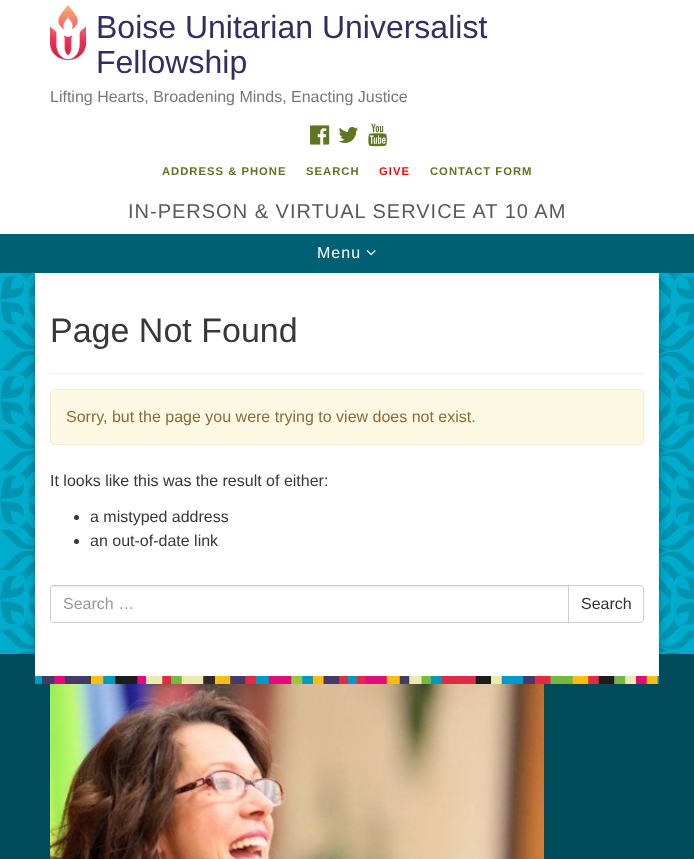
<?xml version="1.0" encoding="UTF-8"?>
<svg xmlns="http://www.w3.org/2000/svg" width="694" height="859">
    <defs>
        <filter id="blur1" x="-50%" y="-200%" width="200%" height="500%"><feGaussianBlur stdDeviation="5"/></filter>
    </defs>
    <rect width="100%" height="100%" fill="#FFFFFF"/>
    <image x="0" y="273" width="694" height="381" href="img_01.png"/>
    <image x="50" y="5" width="36" height="55" href="img_02.png"/>
    <text font-family="Liberation Sans" font-size="32" fill="#312F5D">
        <tspan x="96" y="38">Boise Unitarian Universalist</tspan>
        <tspan x="96" y="73">Fellowship</tspan>
    </text>
    <text x="50" y="102" font-family="Liberation Sans" font-size="16" fill="#777777">Lifting Hearts, Broadening Minds, Enacting Justice</text>
    <image x="310" y="125" width="20" height="20" href="img_03.png"/>
    <image x="338" y="127" width="20" height="16" href="img_04.png"/>
    <image x="368" y="123" width="19" height="24" href="img_05.png"/>
    <text x="162" y="175" font-family="Liberation Sans" font-size="11.25" font-weight="700" letter-spacing="1" fill="#607523">ADDRESS &amp; PHONE</text>
    <text x="306" y="175" font-family="Liberation Sans" font-size="11.25" font-weight="700" letter-spacing="1" fill="#607523">SEARCH</text>
    <text x="379" y="175" font-family="Liberation Sans" font-size="11.25" font-weight="700" letter-spacing="1" fill="#FF0000">GIVE</text>
    <text x="430" y="175" font-family="Liberation Sans" font-size="11.25" font-weight="700" letter-spacing="1" fill="#607523">CONTACT FORM</text>
    <text x="128" y="218" font-family="Liberation Sans" font-size="20" letter-spacing="1" fill="#58595B">IN-PERSON &amp; VIRTUAL SERVICE AT 10 AM</text>
    <rect x="35" y="273" width="624" height="381" fill="#000000" fill-opacity="0.3" filter="url(#blur1)"/>
    <rect x="0" y="234" width="694" height="39" fill="#006073"/>
    <text x="317" y="258" font-family="Liberation Sans" font-size="16" letter-spacing="1" fill="#FFFFFF">Menu</text>
    <image x="366" y="250" width="10" height="6" href="img_06.png"/>
    <rect x="35" y="273" width="624" height="381" fill="#FFFFFF"/>
    <rect x="50" y="373" width="594" height="1" fill="#EEEEEE"/>
    <text x="50" y="342" font-family="Liberation Sans" font-size="34" fill="#373839">Page Not Found</text>
    <rect x="50.5" y="389.5" width="593" height="55" rx="3.5" fill="#FCF8E3" stroke="#FAEBCC"/>
    <text x="66" y="422" font-family="Liberation Sans" font-size="16" fill="#8A6D3B">Sorry, but the page you were trying to view does not exist.</text>
    <text x="50" y="486" font-family="Liberation Sans" font-size="16" fill="#373839">It looks like this was the result of either:</text>
    <circle cx="76.5" cy="517.5" r="2.5" fill="#373839"/>
    <text x="90" y="522" font-family="Liberation Sans" font-size="16" fill="#373839">a mistyped address</text>
    <circle cx="76.5" cy="541.5" r="2.5" fill="#373839"/>
    <text x="90" y="546" font-family="Liberation Sans" font-size="16" fill="#373839">an out-of-date link</text>
    <path d="M 568.5 585.5 H 640 C 642 585.5 643.5 587 643.5 589 V 619 C 643.5 621 642 622.5 640 622.5 H 568.5 Z" fill="none" stroke="#CCCCCC"/>
    <path d="M 54 585 H 569 V 623 H 54 C 52 623 50 621 50 619 V 589 C 50 587 52 585 54 585 Z" fill="#FFFFFF"/>
    <path d="M 54 587 H 568 V 586 H 54 C 52 586 51 588 51 590 C 51 588 52 587 54 587 Z" fill="#ECECEC"/>
    <path d="M 54 585.5 H 568.5 V 622.5 H 54 C 52 622.5 50.5 621 50.5 619 V 589 C 50.5 587 52 585.5 54 585.5 Z" fill="none" stroke="#CCCCCC"/>
    <text x="63" y="609" font-family="Liberation Sans" font-size="16" fill="#999999">Search …</text>
    <text x="581" y="609" font-family="Liberation Sans" font-size="16" fill="#333333">Search</text>
    <rect x="0" y="654" width="694" height="205" fill="#004B5A"/>
    <rect x="35" y="654" width="624" height="22" fill="#FFFFFF"/>
    <image x="35" y="676" width="624" height="8" href="img_07.png"/>
    <image x="50" y="684" width="494" height="175" href="img_08.png"/>
</svg>
